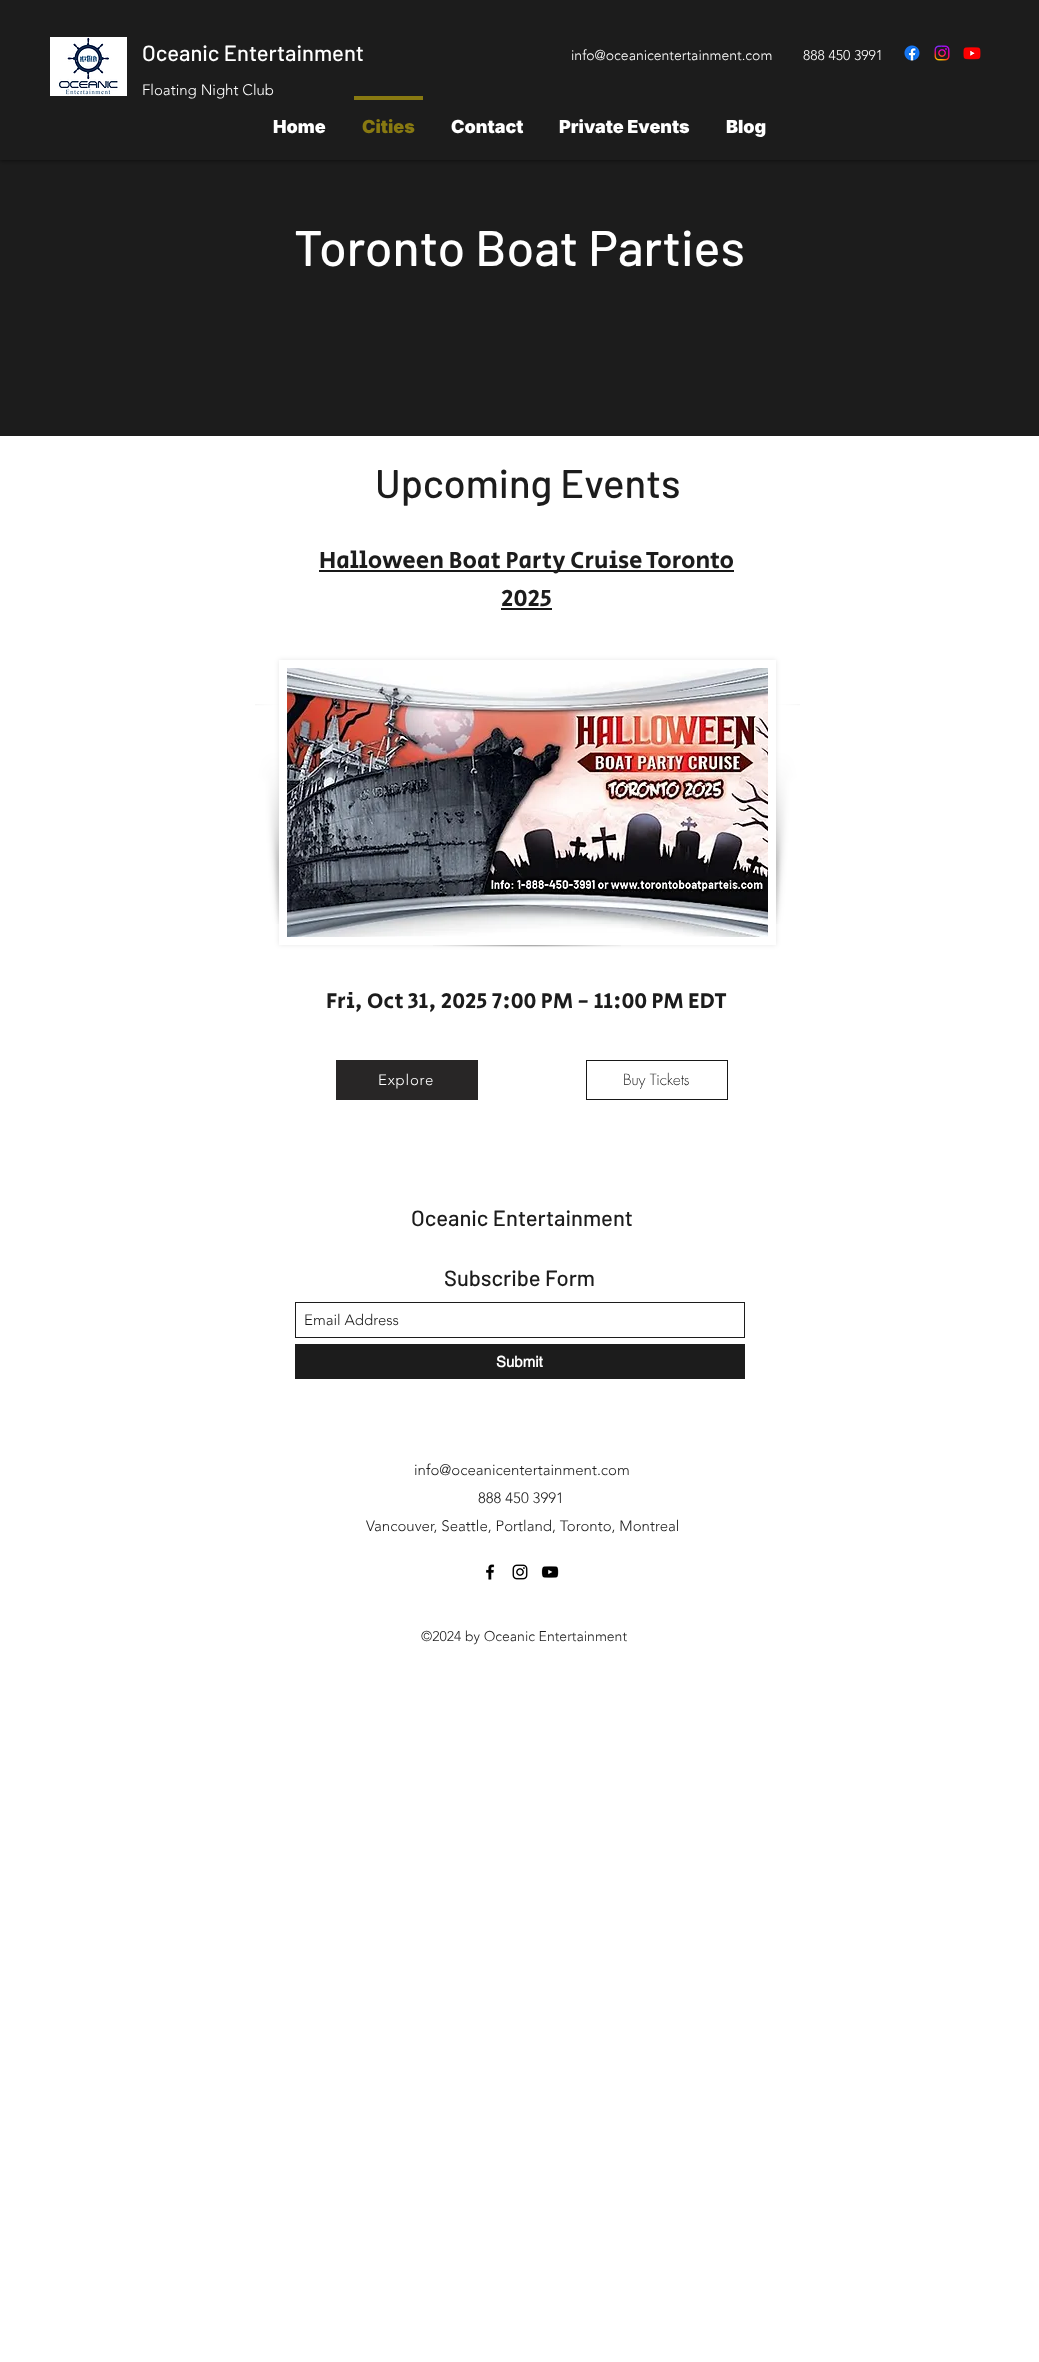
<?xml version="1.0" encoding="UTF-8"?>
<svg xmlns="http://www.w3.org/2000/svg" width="1039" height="2362">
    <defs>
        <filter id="blur1" x="-50%" y="-200%" width="200%" height="500%"><feGaussianBlur stdDeviation="2.5"/></filter>
        <clipPath id="clip1"><path d="M 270 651 H 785 V 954 H 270 Z M 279 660 H 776 V 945 H 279 Z" clip-rule="evenodd"/></clipPath>
    </defs>
    <rect width="100%" height="100%" fill="#FFFFFF"/>
    <rect x="0" y="160" width="1039" height="276" fill="#1C1C1C"/>
    <rect x="0" y="0" width="1039" height="160" fill="#000000" fill-opacity="0.7" filter="url(#blur1)"/>
    <rect x="0" y="0" width="1039" height="160" fill="#1C1C1C"/>
    <image x="50" y="37" width="77" height="59" href="img_01.png"/>
    <text x="142" y="61" font-family="Barlow" font-size="22" font-weight="500" fill="#FFFFFF">Oceanic Entertainment</text>
    <text x="142" y="95" font-family="'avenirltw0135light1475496'" font-size="15" font-weight="300" fill="#FFFFFF">Floating Night Club</text>
    <text x="571" y="60" font-family="'avenirltw0135light1475496'" font-size="14" font-weight="300" fill="#FFFFFF">info@oceanicentertainment.com</text>
    <text x="803" y="60" font-family="'avenirltw0135light1475496'" font-size="14" font-weight="300" fill="#FFFFFF">888 450 3991</text>
    <image x="904" y="45" width="16" height="16" href="img_02.png"/>
    <image x="934" y="45" width="16" height="16" href="img_03.png"/>
    <image x="963" y="47" width="18" height="13" href="img_04.png"/>
    <text x="273" y="133" font-family="Inter" font-size="18" font-weight="900" fill="#FFFFFF">Home</text>
    <rect x="354" y="96" width="69" height="4" fill="#887911"/>
    <text x="362" y="133" font-family="Inter" font-size="18" font-weight="900" fill="#887911">Cities</text>
    <text x="451" y="133" font-family="Inter" font-size="18" font-weight="900" fill="#FFFFFF">Contact</text>
    <text x="559" y="133" font-family="Inter" font-size="18" font-weight="900" fill="#FFFFFF">Private Events</text>
    <text x="726" y="133" font-family="Inter" font-size="18" font-weight="900" fill="#FFFFFF">Blog</text>
    <text x="294" y="266" font-family="Barlow" font-size="50" font-weight="500" fill="#FFFFFF">Toronto Boat Parties</text>
    <text x="375" y="498" font-family="Barlow" font-size="40" font-weight="500" fill="#1C1C1C">Upcoming Events</text>
    <rect x="319" y="570" width="415" height="2" fill="#181818"/>
    <text x="319" y="568" font-family="Secular One" font-size="24" fill="#1C1C1C">Halloween Boat Party Cruise Toronto</text>
    <text x="501" y="606" font-family="Secular One" font-size="24" fill="#1C1C1C">2025</text>
    <rect x="501" y="608" width="51" height="2" fill="#181818"/>
    <g clip-path="url(#clip1)">
        <rect x="279" y="660" width="497" height="285" fill="#000000" fill-opacity="0.1" filter="url(#blur1)"/>
    </g>
    <image x="255" y="704" width="24" height="220" href="img_05.png"/>
    <image x="287" y="668" width="481" height="269" href="img_06.png"/>
    <image x="433" y="945" width="188" height="2" href="img_07.png"/>
    <image x="776" y="704" width="24" height="220" href="img_08.png"/>
    <text x="326" y="1008" font-family="Secular One" font-size="22" fill="#1C1C1C">Fri, Oct 31, 2025 7:00 PM - 11:00 PM EDT</text>
    <rect x="336" y="1060" width="142" height="40" fill="#282626"/>
    <text x="378" y="1085" font-family="'avenirltw0135light1475496'" font-size="15" font-weight="300" letter-spacing="0.75" fill="#FFFFFF">Explore</text>
    <rect x="586.5" y="1060.5" width="141" height="39" fill="none" stroke="#181818"/>
    <text x="623" y="1085" font-family="futura" font-size="15" font-weight="300" fill="#1C1C1C">Buy Tickets</text>
    <text x="411" y="1226" font-family="Barlow" font-size="22" font-weight="500" fill="#1C1C1C">Oceanic Entertainment</text>
    <text x="444" y="1286" font-family="Barlow" font-size="22" font-weight="500" fill="#1C1C1C">Subscribe Form</text>
    <rect x="295.5" y="1302.5" width="449" height="35" fill="none" stroke="#1C1C1C"/>
    <text x="304" y="1325" font-family="'avenirltw0135light1475496'" font-size="15" font-weight="300" fill="#1C1C1C">Email Address</text>
    <rect x="295" y="1344" width="450" height="35" fill="#1C1C1C"/>
    <text x="496" y="1367" font-family="helvetica" font-size="15" font-weight="700" fill="#FFFFFF">Submit</text>
    <text x="414" y="1475" font-family="'avenirltw0135light1475496'" font-size="15" font-weight="300" fill="#1C1C1C">info@oceanicentertainment.com</text>
    <text x="478" y="1503" font-family="'avenirltw0135light1475496'" font-size="15" font-weight="300" fill="#1C1C1C">888 450 3991</text>
    <text x="366" y="1531" font-family="'avenirltw0135light1475496'" font-size="15" font-weight="300" fill="#1C1C1C">Vancouver, Seattle, Portland, Toronto, Montreal</text>
    <image x="486" y="1564" width="9" height="16" href="img_09.png"/>
    <image x="512" y="1564" width="16" height="16" href="img_10.png"/>
    <image x="541" y="1566" width="18" height="12" href="img_11.png"/>
    <text x="421" y="1641" font-family="'avenirltw0135light1475496'" font-size="14" font-weight="300" fill="#1C1C1C">©2024 by Oceanic Entertainment</text>
</svg>
